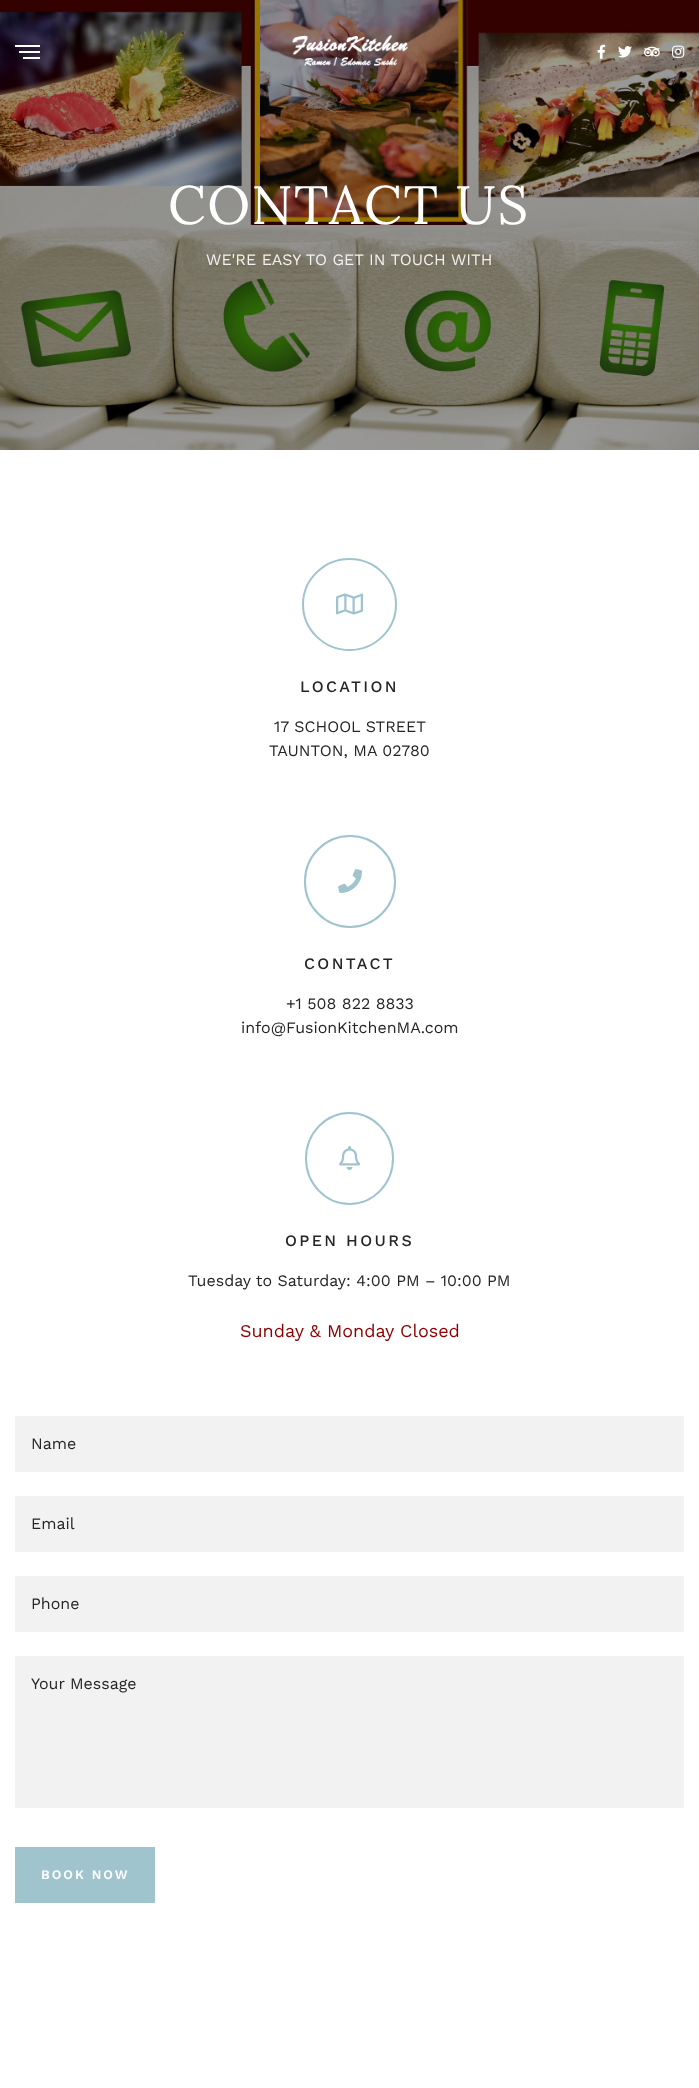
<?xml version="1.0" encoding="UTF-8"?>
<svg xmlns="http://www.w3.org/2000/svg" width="699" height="2088">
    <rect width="100%" height="100%" fill="#FFFFFF"/>
    <image x="0" y="0" width="699" height="450" href="img_06.png"/>
    <rect x="15" y="45" width="25" height="2" fill="#FFFFFF"/>
    <rect x="19" y="51" width="21" height="2" fill="#FFFFFF"/>
    <rect x="23" y="57" width="17" height="2" fill="#FFFFFF"/>
    <image x="292" y="35" width="116" height="32" href="img_01.png"/>
    <image x="597" y="44" width="9" height="15" href="img_02.png"/>
    <image x="618" y="46" width="14" height="12" href="img_03.png"/>
    <image x="644" y="46" width="16" height="11" href="img_04.png"/>
    <image x="672" y="45" width="13" height="13" href="img_05.png"/>
    <text x="168" y="224" font-family="Lora" font-size="54" letter-spacing="1.6" fill="#FFFFFF">CONTACT US</text>
    <text x="206" y="265" font-family="Work Sans" font-size="16" fill="#F2F1F0">WE'RE EASY TO GET IN TOUCH WITH</text>
    <path d="M 349.5 559 C 375 559 396 579.5 396 604.5 C 396 629.5 375 650 349.5 650 C 324 650 303 629.5 303 604.5 C 303 579.5 324 559 349.5 559 Z" fill="none" stroke="#9FC4CE" stroke-width="2"/>
    <image x="336" y="593" width="27" height="22" href="img_07.png"/>
    <text x="300" y="692" font-family="Work Sans" font-size="16" font-weight="500" letter-spacing="2.4" fill="#252525">LOCATION</text>
    <text x="274" y="732" font-family="Work Sans" font-size="16" fill="#252525">17 SCHOOL STREET</text>
    <text x="269" y="756" font-family="Work Sans" font-size="16" fill="#252525">TAUNTON, MA 02780</text>
    <rect x="305" y="836" width="90" height="91" rx="45" fill="none" stroke="#9FC4CE" stroke-width="2"/>
    <image x="338" y="869" width="24" height="24" href="img_08.png"/>
    <text x="304" y="969" font-family="Work Sans" font-size="16" font-weight="500" letter-spacing="2.4" fill="#252525">CONTACT</text>
    <text x="286" y="1009" font-family="Work Sans" font-size="16" fill="#252525">+1 508 822 8833</text>
    <text x="241" y="1033" font-family="Work Sans" font-size="16" fill="#252525">info@FusionKitchenMA.com</text>
    <path d="M 349.5 1113 C 373.5 1113 393 1133.5 393 1158.5 C 393 1183.5 373.5 1204 349.5 1204 C 325.5 1204 306 1183.5 306 1158.5 C 306 1133.5 325.5 1113 349.5 1113 Z" fill="none" stroke="#9FC4CE" stroke-width="2"/>
    <image x="339" y="1146" width="21" height="24" href="img_09.png"/>
    <text x="285" y="1246" font-family="Work Sans" font-size="16" font-weight="500" letter-spacing="2.4" fill="#252525">OPEN HOURS</text>
    <text x="188" y="1286" font-family="Work Sans" font-size="16" fill="#252525">Tuesday to Saturday: 4:00 PM – 10:00 PM</text>
    <text x="240" y="1337" font-family="Work Sans" font-size="18" fill="#8B0000">Sunday &amp; Monday Closed</text>
    <rect x="15" y="1416" width="669" height="56" fill="#F2F2F2"/>
    <text x="31" y="1449" font-family="Work Sans" font-size="16" fill="#252525">Name</text>
    <rect x="15" y="1496" width="669" height="56" fill="#F2F2F2"/>
    <text x="31" y="1529" font-family="Work Sans" font-size="16" fill="#252525">Email</text>
    <rect x="15" y="1576" width="669" height="56" fill="#F2F2F2"/>
    <text x="31" y="1609" font-family="Work Sans" font-size="16" fill="#252525">Phone</text>
    <rect x="15" y="1656" width="669" height="152" fill="#F2F2F2"/>
    <text x="31" y="1689" font-family="Work Sans" font-size="16" fill="#252525">Your Message</text>
    <rect x="15" y="1847" width="140" height="56" fill="#9FC4CE"/>
    <text x="41" y="1879" font-family="Work Sans" font-size="13" font-weight="600" letter-spacing="2" fill="#FFFFFF">BOOK NOW</text>
</svg>
